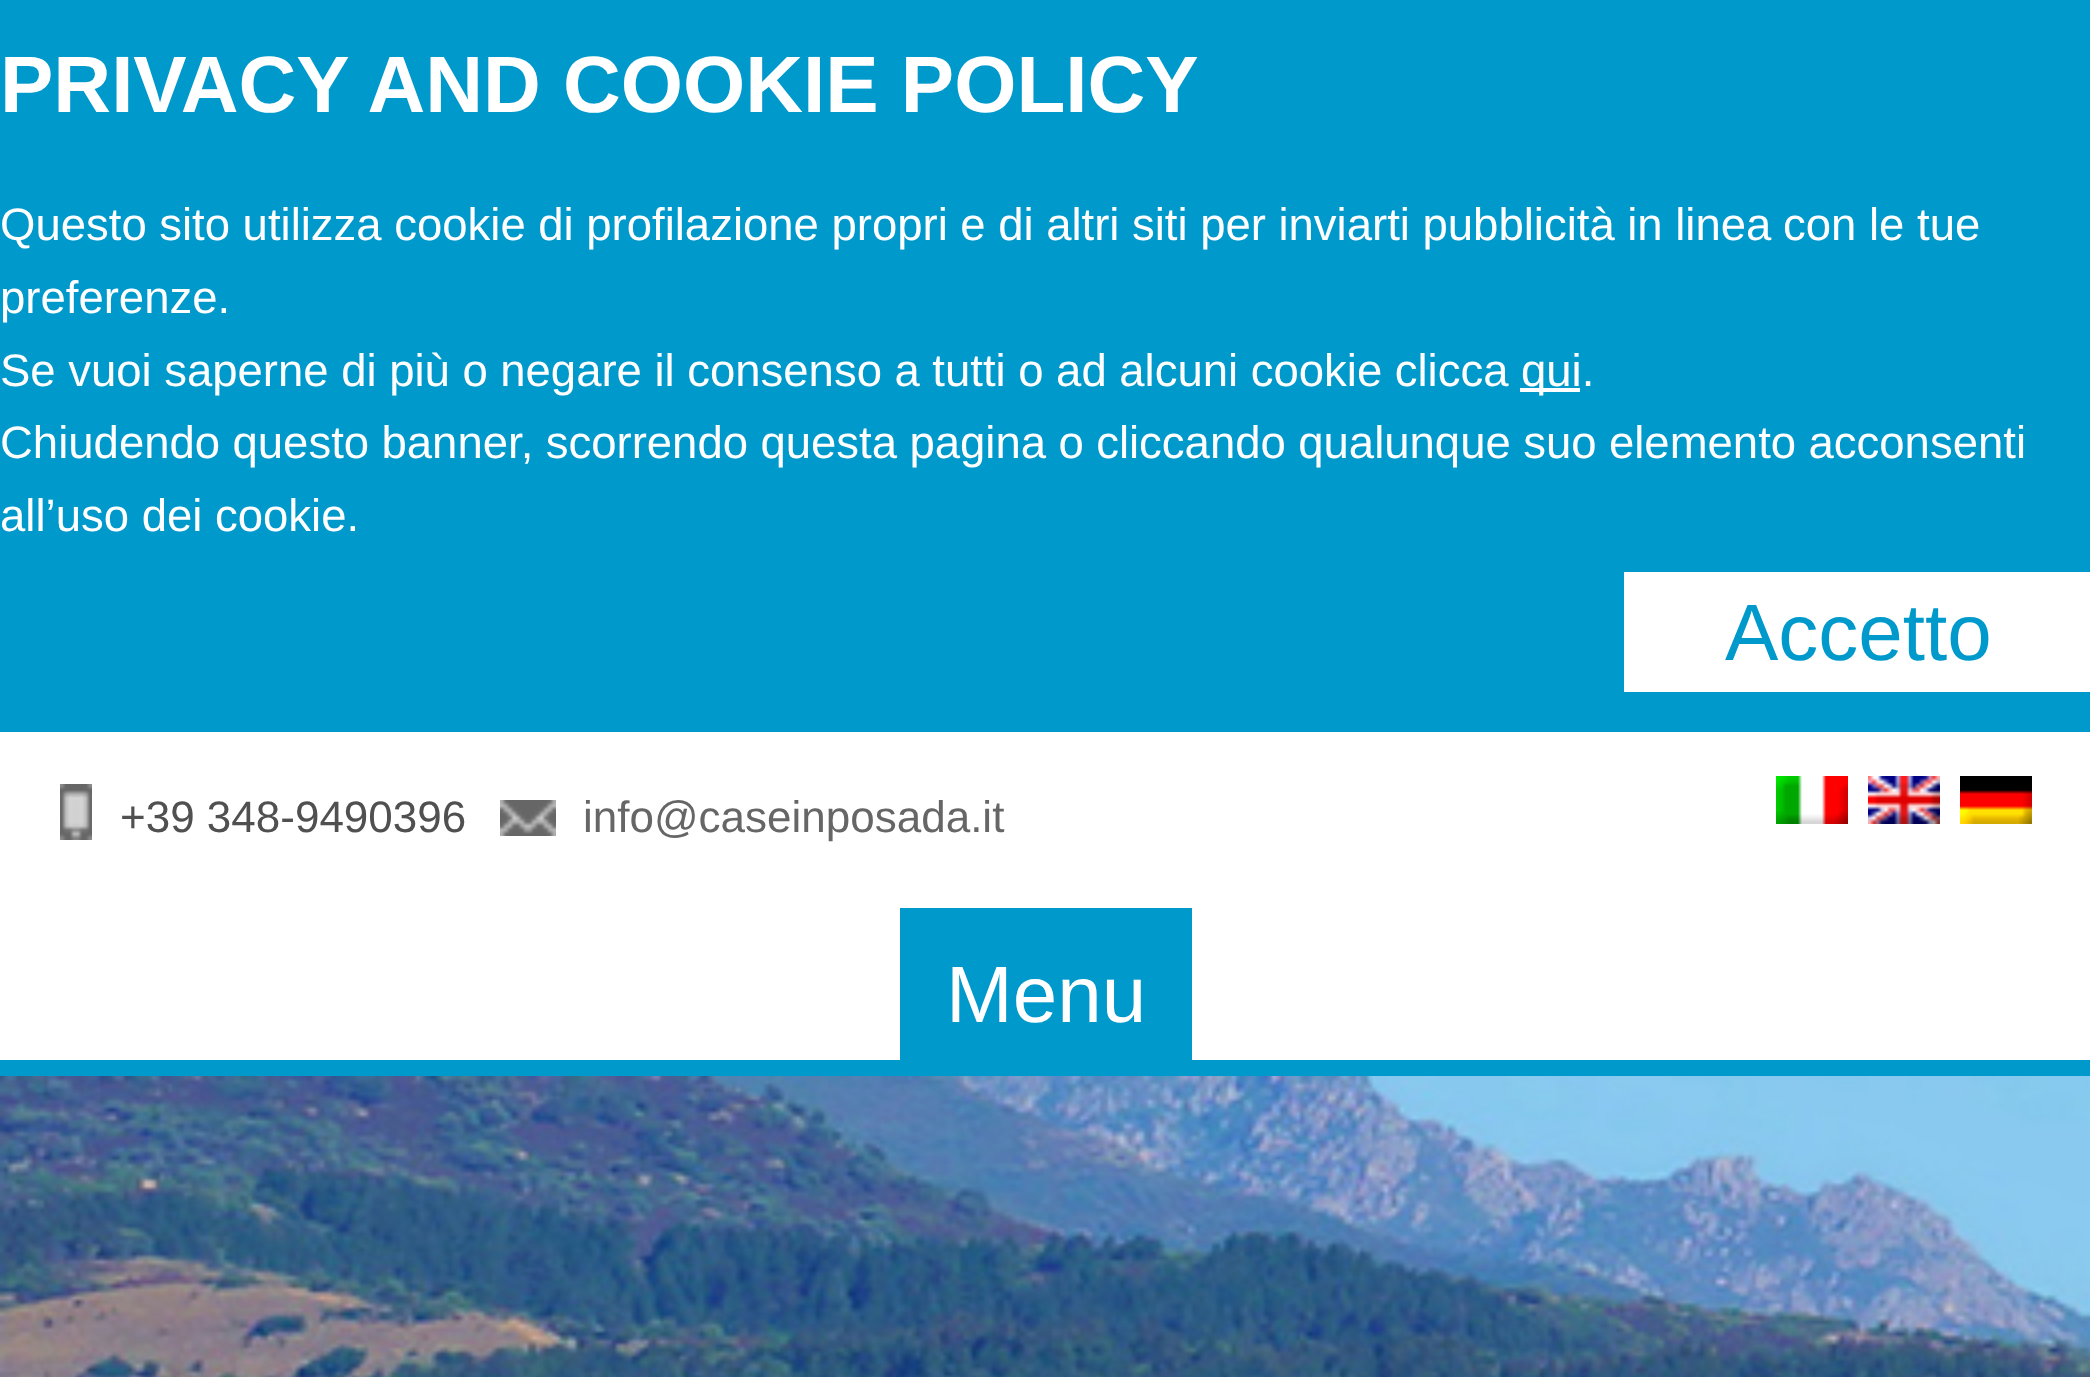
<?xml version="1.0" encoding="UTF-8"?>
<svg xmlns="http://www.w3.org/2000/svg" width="2090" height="1377">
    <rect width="100%" height="100%" fill="#0099CC"/>
    <text x="0" y="112" font-family="Arimo" font-size="80" font-weight="700" fill="#FFFFFF">PRIVACY AND COOKIE POLICY</text>
    <text x="0" y="240" word-spacing="-0.1" font-family="Arimo" font-size="45.5" fill="#FFFFFF">Questo sito utilizza cookie di profilazione propri e di altri siti per inviarti pubblicità in linea</text>
    <text x="1783" y="240" font-family="Arimo" font-size="45.5" fill="#FFFFFF">con le tue</text>
    <text font-family="Arimo" font-size="45.5" fill="#FFFFFF">
        <tspan x="0" y="313">preferenze.</tspan>
        <tspan x="0" y="386" word-spacing="-0.1">Se vuoi saperne di più o negare il consenso a tutti o ad alcuni cookie clicca</tspan>
    </text>
    <rect x="1520" y="388" width="60" height="4" fill="#FFFFFF"/>
    <text x="1521" y="386" font-family="Arimo" font-size="45.5" fill="#FFFFFF">qui.</text>
    <text font-family="Arimo" font-size="45.5" fill="#FFFFFF">
        <tspan x="0" y="458" word-spacing="-0.25">Chiudendo questo banner, scorrendo questa pagina o cliccando qualunque suo elemento acconsenti</tspan>
        <tspan x="0" y="531">all’uso dei cookie.</tspan>
    </text>
    <rect x="1624" y="572" width="466" height="120" fill="#FFFFFF"/>
    <text x="1725" y="660" font-family="Arimo" font-size="80" fill="#0099CC">Accetto</text>
    <rect x="0" y="732" width="2090" height="328" fill="#FFFFFF"/>
    <image x="60" y="784" width="32" height="56" href="img_01.png"/>
    <text x="120" y="832" font-family="Arimo" font-size="44" fill="#505050">+39 348-9490396</text>
    <image x="500" y="800" width="56" height="36" href="img_02.png"/>
    <text x="583" y="832" font-family="Arimo" font-size="44" fill="#666666">info@caseinposada.it</text>
    <image x="1776" y="776" width="72" height="48" href="img_03.png"/>
    <image x="1868" y="776" width="72" height="48" href="img_04.png"/>
    <image x="1960" y="776" width="72" height="48" href="img_05.png"/>
    <rect x="900" y="908" width="292" height="152" fill="#0099CC"/>
    <text x="946" y="1022" font-family="Arimo" font-size="80" fill="#FFFFFF">Menu</text>
    <image x="0" y="1076" width="2090" height="301" href="img_06.png"/>
</svg>
